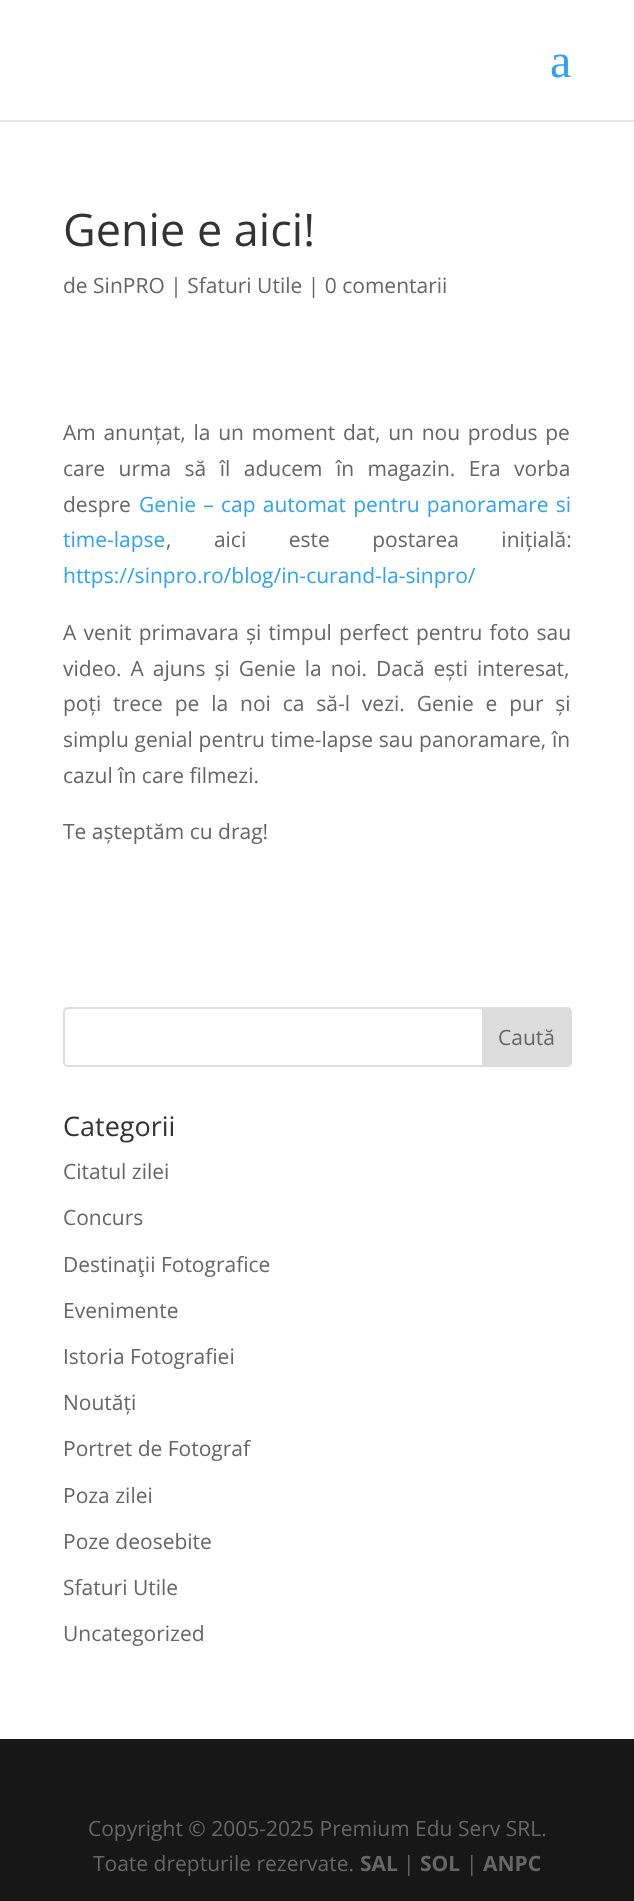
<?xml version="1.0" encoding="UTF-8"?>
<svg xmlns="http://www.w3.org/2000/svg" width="634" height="1901">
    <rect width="100%" height="100%" fill="#FFFFFF"/>
    <path d="M 0 120 V 122 H 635 V 2 H 634 V 120 Z" fill="#E6E6E6"/>
    <text x="550" y="77" font-family="Liberation Serif" font-size="48" fill="#2EA3F2">a</text>
    <text x="63" y="246" font-family="Open Sans" font-size="45" fill="#333333">Genie e aici!</text>
    <text x="63" y="293" font-family="Open Sans" font-size="21" fill="#666666">de SinPRO | Sfaturi Utile | 0 comentarii</text>
    <text font-family="Open Sans" font-size="21" fill="#666666">
        <tspan x="63" y="440" word-spacing="2.25">Am anunțat, la un moment dat, un nou produs pe</tspan>
        <tspan x="63" y="476" word-spacing="8">care urma să îl aducem în magazin. Era vorba</tspan>
        <tspan x="63" y="512">despre</tspan>
    </text>
    <text x="139" y="512" word-spacing="1.75" font-family="Open Sans" font-size="21" fill="#2EA3F2">Genie – cap automat pentru panoramare si</text>
    <text x="63" y="547" font-family="Open Sans" font-size="21" fill="#2EA3F2">time-lapse</text>
    <text x="166" y="547" word-spacing="37" font-family="Open Sans" font-size="21" fill="#666666">, aici este postarea inițială:</text>
    <text x="63" y="583" font-family="Open Sans" font-size="21" fill="#2EA3F2">https://sinpro.ro/blog/in-curand-la-sinpro/</text>
    <text font-family="Open Sans" font-size="21" fill="#666666">
        <tspan x="63" y="640" word-spacing="1.75">A venit primavara și timpul perfect pentru foto sau</tspan>
        <tspan x="63" y="676" word-spacing="3.5">video. A ajuns și Genie la noi. Dacă ești interesat,</tspan>
        <tspan x="63" y="711" word-spacing="6.4">poți trece pe la noi ca să-l vezi. Genie e pur și</tspan>
        <tspan x="63" y="747" word-spacing="0.25">simplu genial pentru time-lapse sau panoramare, în</tspan>
        <tspan x="63" y="783">cazul în care filmezi.</tspan>
    </text>
    <text x="63" y="839" font-family="Open Sans" font-size="21" fill="#666666">Te așteptăm cu drag!</text>
    <rect x="64" y="1008" width="507" height="58" rx="4" fill="none" stroke="#DDDDDD" stroke-width="2"/>
    <path d="M 483 1008 H 567 C 569 1008 571 1010 571 1012 V 1062 C 571 1064 569 1066 567 1066 H 483 Z" fill="#DDDDDD" stroke="#DDDDDD" stroke-width="2"/>
    <text x="498" y="1045" font-family="Open Sans" font-size="21" fill="#666666">Caută</text>
    <text x="63" y="1136" font-family="Open Sans" font-size="27" fill="#333333">Categorii</text>
    <text x="63" y="1179" font-family="Open Sans" font-size="21" fill="#666666">Citatul zilei</text>
    <text x="63" y="1225" font-family="Open Sans" font-size="21" fill="#666666">Concurs</text>
    <text x="63" y="1272" font-family="Open Sans" font-size="21" fill="#666666">Destinaţii Fotografice</text>
    <text x="63" y="1318" font-family="Open Sans" font-size="21" fill="#666666">Evenimente</text>
    <text x="63" y="1364" font-family="Open Sans" font-size="21" fill="#666666">Istoria Fotografiei</text>
    <text x="63" y="1410" font-family="Open Sans" font-size="21" fill="#666666">Noutăți</text>
    <text x="63" y="1456" font-family="Open Sans" font-size="21" fill="#666666">Portret de Fotograf</text>
    <text x="63" y="1503" font-family="Open Sans" font-size="21" fill="#666666">Poza zilei</text>
    <text x="63" y="1549" font-family="Open Sans" font-size="21" fill="#666666">Poze deosebite</text>
    <text x="63" y="1595" font-family="Open Sans" font-size="21" fill="#666666">Sfaturi Utile</text>
    <text x="63" y="1641" font-family="Open Sans" font-size="21" fill="#666666">Uncategorized</text>
    <rect x="0" y="1739" width="634" height="162" fill="#171717"/>
    <text x="88" y="1836" font-family="Open Sans" font-size="21" fill="#666666">Copyright © 2005-2025 Premium Edu Serv SRL.</text>
    <text x="93" y="1871" font-family="Open Sans" font-size="21" fill="#666666">Toate drepturile rezervate.</text>
    <text x="360" y="1871" font-family="Open Sans" font-size="21" font-weight="700" fill="#666666">SAL</text>
    <text x="403" y="1871" font-family="Open Sans" font-size="21" fill="#666666">|</text>
    <text x="420" y="1871" font-family="Open Sans" font-size="21" font-weight="700" fill="#666666">SOL</text>
    <text x="466" y="1871" font-family="Open Sans" font-size="21" fill="#666666">|</text>
    <text x="483" y="1871" font-family="Open Sans" font-size="21" font-weight="700" fill="#666666">ANPC</text>
</svg>
